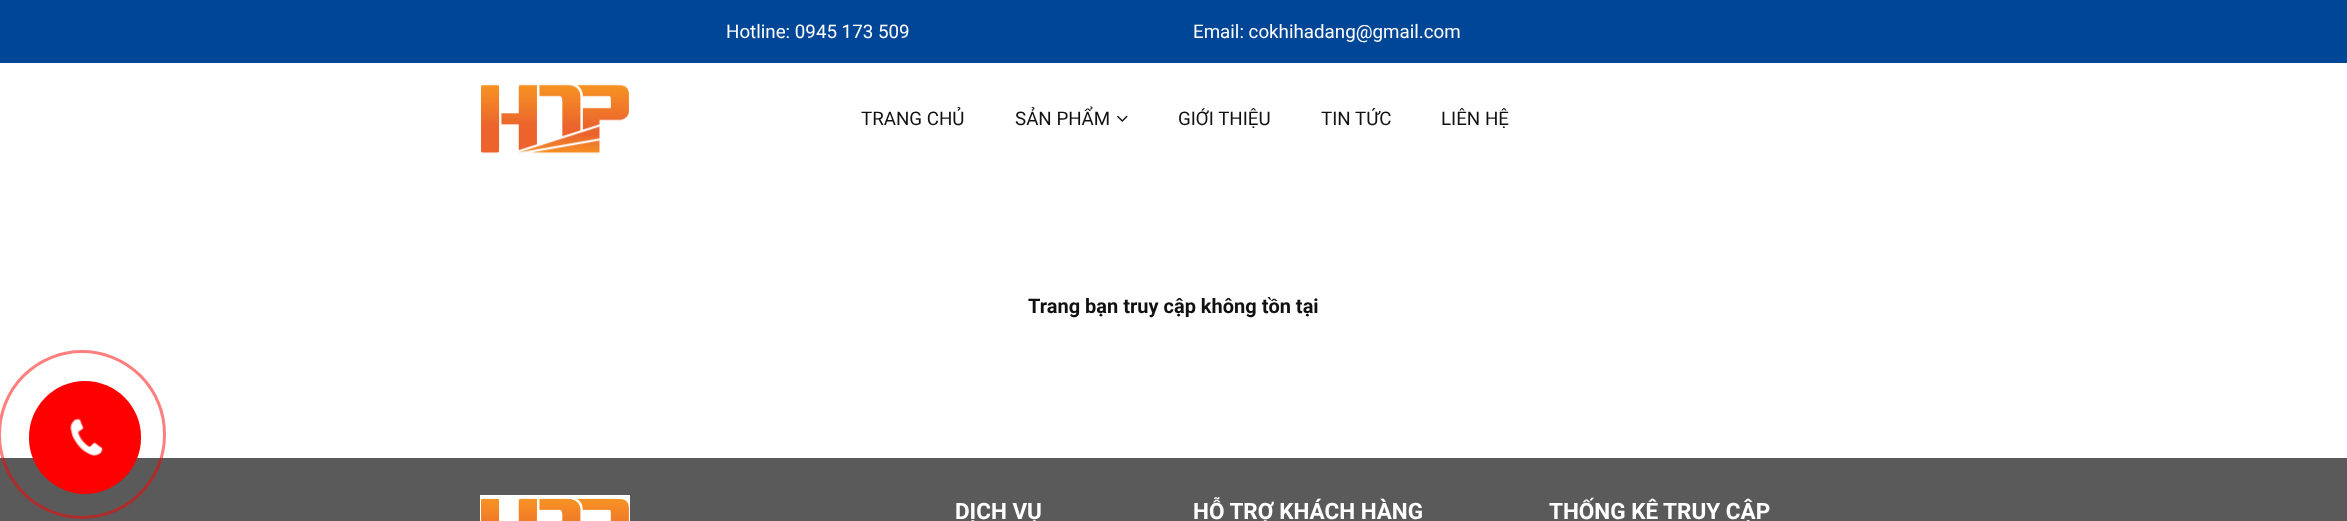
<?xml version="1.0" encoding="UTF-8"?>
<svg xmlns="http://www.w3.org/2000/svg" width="2347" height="521">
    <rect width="100%" height="100%" fill="#FFFFFF"/>
    <rect x="0" y="458" width="2347" height="63" fill="#5A5A5A"/>
    <rect x="-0.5" y="351.5" width="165" height="166" rx="82.5" fill="none" stroke="#FF0000" stroke-opacity="0.5" stroke-width="3"/>
    <rect x="29" y="381" width="112" height="113" rx="56" fill="#FF0000"/>
    <image x="70" y="418" width="33" height="38" href="img_01.png"/>
    <rect x="0" y="0" width="2347" height="63" fill="#004696"/>
    <text x="726" y="38" font-family="Roboto" font-size="18.75" fill="#FFFFFF">Hotline: 0945 173 509</text>
    <text x="1193" y="38" font-family="Roboto" font-size="18.75" fill="#FFFFFF">Email: cokhihadang@gmail.com</text>
    <image x="481" y="84" width="148" height="70" href="img_02.png"/>
    <text x="861" y="125" font-family="Roboto" font-size="18.75" fill="#111111">TRANG CHỦ</text>
    <text x="1015" y="125" font-family="Roboto" font-size="18.75" fill="#111111">SẢN PHẨM</text>
    <image x="1117" y="115" width="11" height="7" href="img_03.png"/>
    <text x="1178" y="125" font-family="Roboto" font-size="18.75" fill="#111111">GIỚI THIỆU</text>
    <text x="1321" y="125" font-family="Roboto" font-size="18.75" fill="#111111">TIN TỨC</text>
    <text x="1441" y="125" font-family="Roboto" font-size="18.75" fill="#111111">LIÊN HỆ</text>
    <text x="1028" y="313" font-family="Roboto" font-size="20" font-weight="700" fill="#111111">Trang bạn truy cập không tồn tại</text>
    <image x="480" y="495" width="150" height="26" href="img_04.png"/>
    <text x="955" y="519" font-family="Roboto" font-size="22.5" font-weight="700" fill="#FFFFFF">DỊCH VỤ</text>
    <text x="1193" y="519" font-family="Roboto" font-size="22.5" font-weight="700" fill="#FFFFFF">HỖ TRỢ KHÁCH HÀNG</text>
    <text x="1549" y="519" font-family="Roboto" font-size="22.5" font-weight="700" fill="#FFFFFF">THỐNG KÊ TRUY CẬP</text>
</svg>
